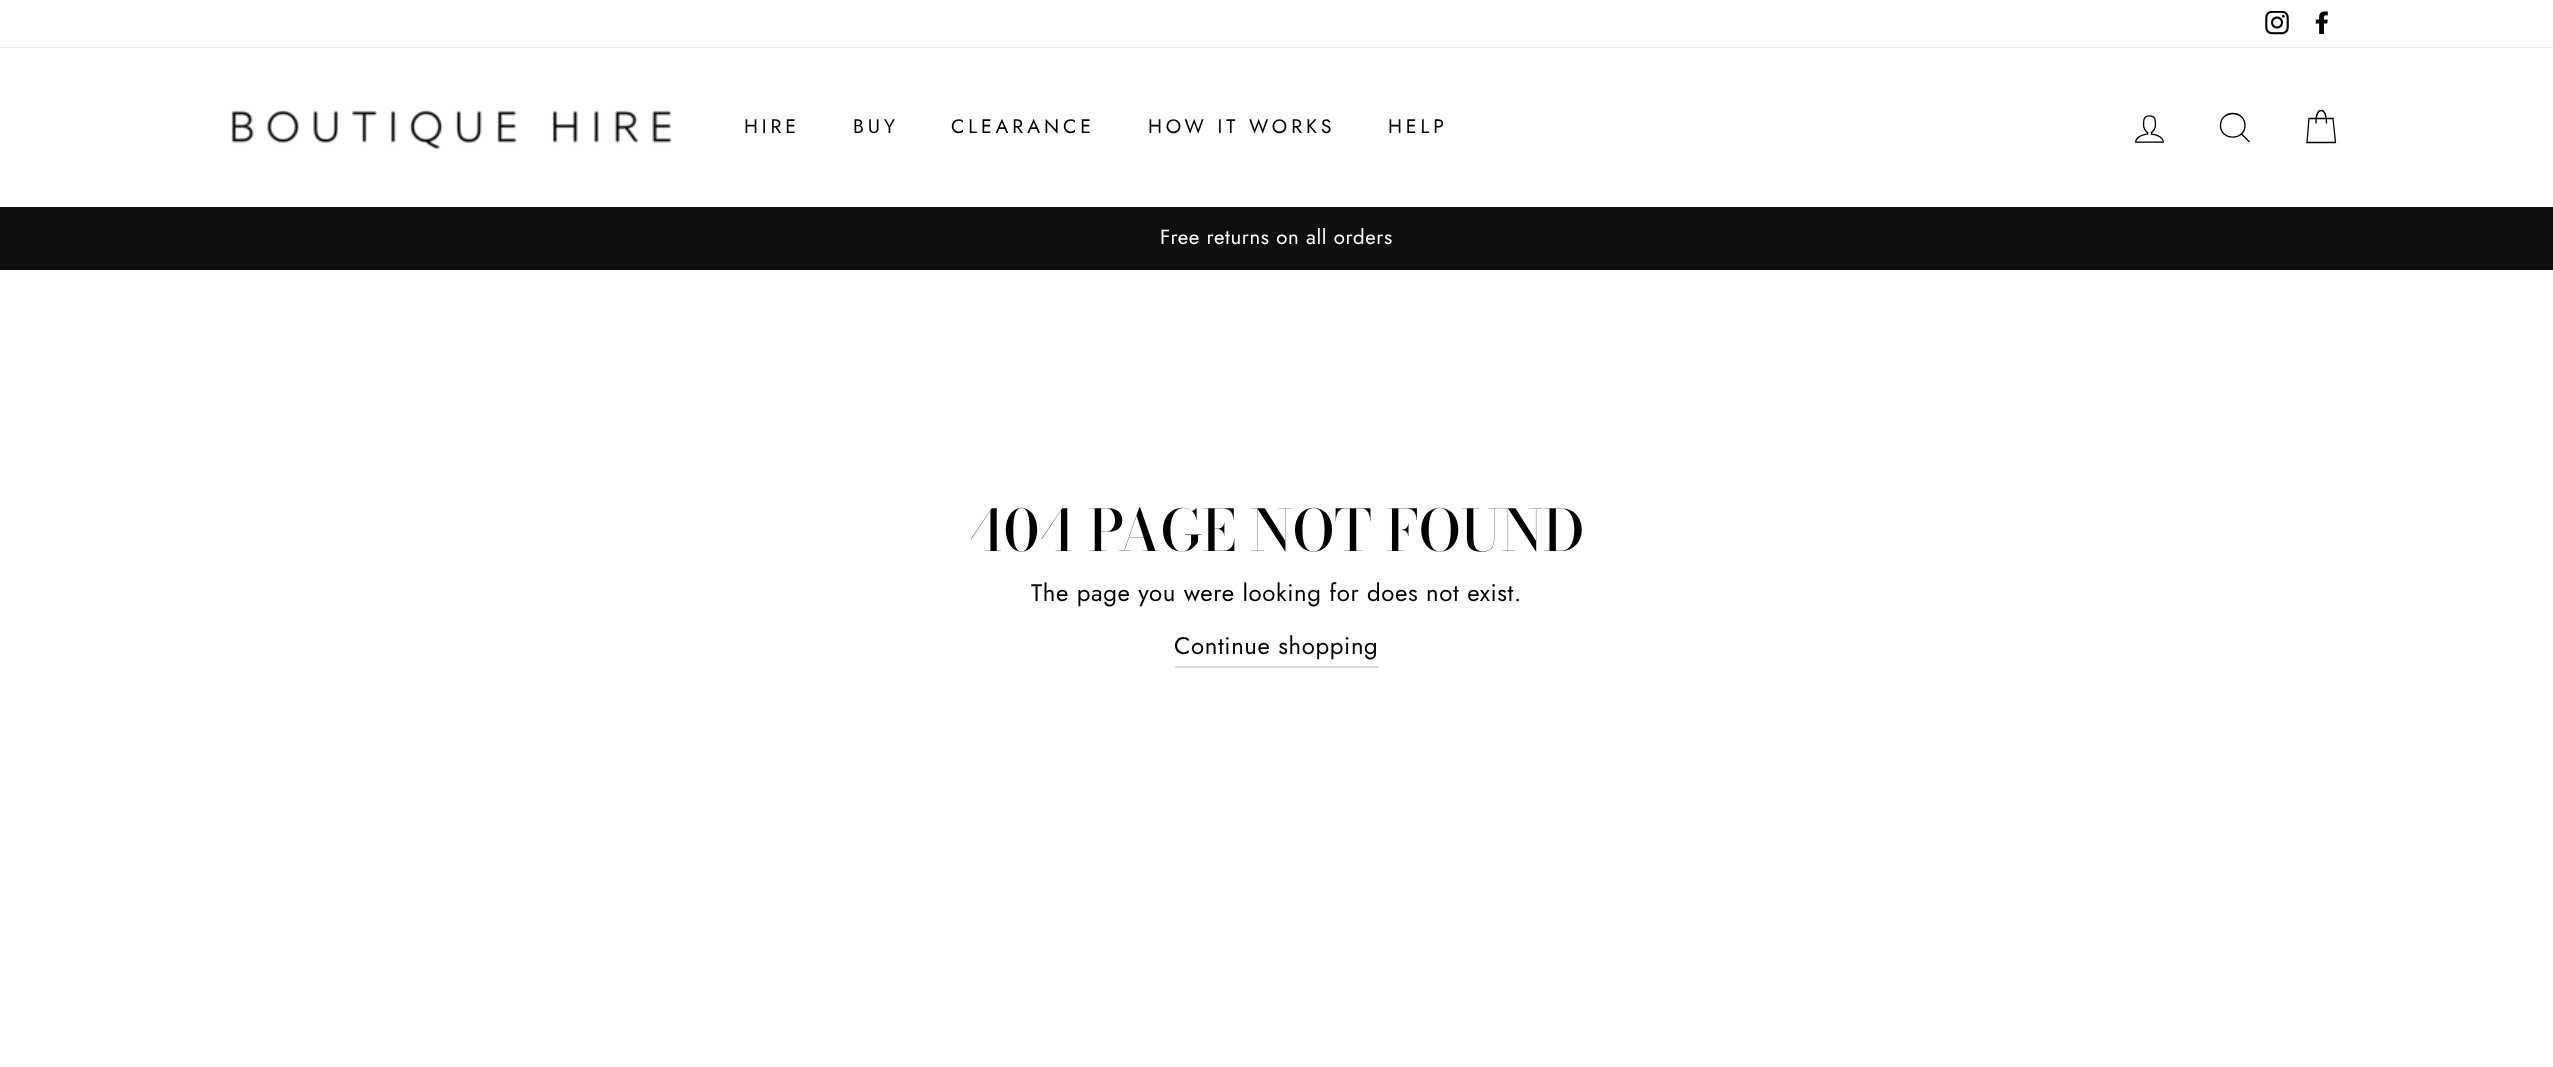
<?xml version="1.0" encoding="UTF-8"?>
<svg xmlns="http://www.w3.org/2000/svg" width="2553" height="1067">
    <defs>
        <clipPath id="clip1"><rect x="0" y="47" width="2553" height="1"/></clipPath>
        <filter id="blur1" x="-50%" y="-200%" width="200%" height="500%"><feGaussianBlur stdDeviation="1"/></filter>
    </defs>
    <rect width="100%" height="100%" fill="#FFFFFF"/>
    <image x="2265" y="11" width="24" height="24" href="img_01.png"/>
    <image x="2315" y="11" width="13" height="23" href="img_02.png"/>
    <g clip-path="url(#clip1)">
        <rect x="0" y="48" width="2553" height="159" fill="#000000" fill-opacity="0.2" filter="url(#blur1)"/>
    </g>
    <image x="231" y="110" width="441" height="39" href="img_03.png"/>
    <text x="744" y="133" font-family="Jost" font-size="19.5" letter-spacing="3.9" fill="#000000">HIRE</text>
    <text x="853" y="133" font-family="Jost" font-size="19.5" letter-spacing="3.9" fill="#000000">BUY</text>
    <text x="951" y="133" font-family="Jost" font-size="19.5" letter-spacing="3.9" fill="#000000">CLEARANCE</text>
    <text x="1148" y="133" font-family="Jost" font-size="19.5" letter-spacing="3.9" fill="#000000">HOW IT WORKS</text>
    <text x="1388" y="133" font-family="Jost" font-size="19.5" letter-spacing="3.9" fill="#000000">HELP</text>
    <image x="2135" y="115" width="29" height="28" href="img_04.png"/>
    <path d="M 2245 125.5 C 2245 141 2220.5 141 2220.5 125.5 C 2220.5 109.5 2245 109.5 2245 125.5 Z M 2249.5 142 L 2241.5 134" fill="none" stroke="#000000" stroke-width="1.3"/>
    <path d="M 2316 123.5 C 2316 113 2318 110.5 2321 110.5 C 2324 110.5 2326.5 113 2326.5 123.5 M 2309 118.5 H 2333 L 2335.5 142.5 H 2307 Z" fill="none" stroke="#000000" stroke-width="1.3"/>
    <rect x="0" y="207" width="2553" height="63" fill="#0F0F0F"/>
    <text x="1160" y="244" font-family="Jost" font-size="20.4" letter-spacing="0.6" fill="#FFFFFF">Free returns on all orders</text>
    <text x="969" y="551" font-family="Bodoni Moda" font-size="57" font-weight="500" fill="#000000">404 PAGE NOT FOUND</text>
    <text x="1031" y="601" font-family="Jost" font-size="24" letter-spacing="0.6" fill="#000000">The page you were looking for does not exist.</text>
    <rect x="1175" y="666" width="204" height="2" fill="#D9D9D9"/>
    <text x="1174" y="654" font-family="Jost" font-size="24" letter-spacing="0.6" fill="#000000">Continue shopping</text>
</svg>
